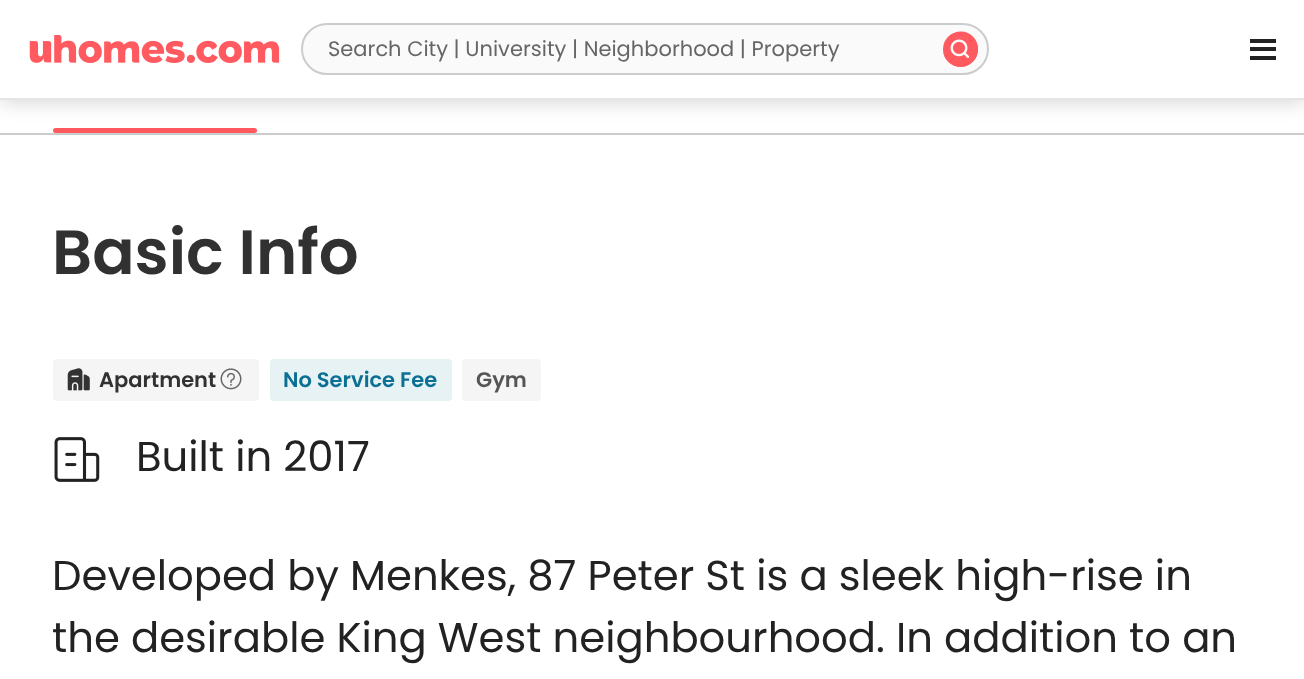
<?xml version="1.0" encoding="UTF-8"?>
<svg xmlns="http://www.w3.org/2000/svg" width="1304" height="679">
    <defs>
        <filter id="blur1" x="-50%" y="-200%" width="200%" height="500%"><feGaussianBlur stdDeviation="10.5"/></filter>
    </defs>
    <rect width="100%" height="100%" fill="#FFFFFF"/>
    <rect x="53" y="128" width="204" height="5" rx="2.5" fill="#FF5A5F"/>
    <rect x="0" y="0" width="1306" height="100" fill="#000000" fill-opacity="0.2" filter="url(#blur1)"/>
    <rect x="0" y="0" width="1304" height="98" fill="#FFFFFF"/>
    <rect x="0" y="98" width="1304" height="2" fill="#E5E5E5"/>
    <image x="29" y="35" width="251" height="28" href="img_01.png"/>
    <rect x="302" y="24" width="686" height="50" rx="25" fill="#FAFAFA" stroke="#CCCCCC" stroke-width="2"/>
    <text x="328" y="56" font-family="Poppins" font-size="21" fill="#666666">Search City | University | Neighborhood | Property</text>
    <circle cx="960.5" cy="49.5" r="17.5" fill="#FF5A5F"/>
    <path d="M 961 31.5 C 970.5 31.5 978 39.5 978 49 C 978 58.5 970.5 66.5 961 66.5 C 951 66.5 943 58.5 943 49 C 943 39.5 951 31.5 961 31.5 Z M 961 33 C 969.5 33 976.5 40.5 976.5 49 C 976.5 57.5 969.5 65 961 65 C 951 65 943 57.5 943 49 C 943 40.5 951 33 961 33 Z" fill="#FF5A5F" fill-rule="evenodd"/>
    <image x="950" y="39" width="20" height="19" href="img_02.png"/>
    <rect x="1250" y="39" width="26" height="4" fill="#222222"/>
    <rect x="1250" y="47" width="26" height="4" fill="#222222"/>
    <rect x="1250" y="56" width="26" height="4" fill="#222222"/>
    <rect x="0" y="133" width="1304" height="2" fill="#CCCCCC"/>
    <text x="52" y="274" font-family="Poppins" font-size="62.5" font-weight="600" fill="#313131">Basic Info</text>
    <rect x="53" y="359" width="206" height="42" rx="4" fill="#F5F5F5"/>
    <image x="67" y="368" width="23" height="23" href="img_03.png"/>
    <text x="99" y="387" font-family="Poppins" font-size="21" font-weight="600" fill="#313131">Apartment</text>
    <image x="220" y="368" width="22" height="22" href="img_04.png"/>
    <rect x="270" y="359" width="182" height="42" rx="4" fill="#E7F2F5"/>
    <text x="283" y="387" font-family="Poppins" font-size="21" font-weight="600" fill="#0C7094">No Service Fee</text>
    <rect x="462" y="359" width="79" height="42" rx="4" fill="#F5F5F5"/>
    <text x="476" y="387" font-family="Poppins" font-size="21" font-weight="600" fill="#555555">Gym</text>
    <image x="54" y="437" width="46" height="45" href="img_05.png"/>
    <text x="136" y="471" font-family="Poppins" font-size="41.75" fill="#222222">Built in 2017</text>
    <text font-family="Poppins" font-size="41.75" fill="#222222">
        <tspan x="52" y="590">Developed by Menkes, 87 Peter St is a sleek high-rise in</tspan>
        <tspan x="52" y="652">the desirable King West neighbourhood. In addition to an</tspan>
    </text>
</svg>
